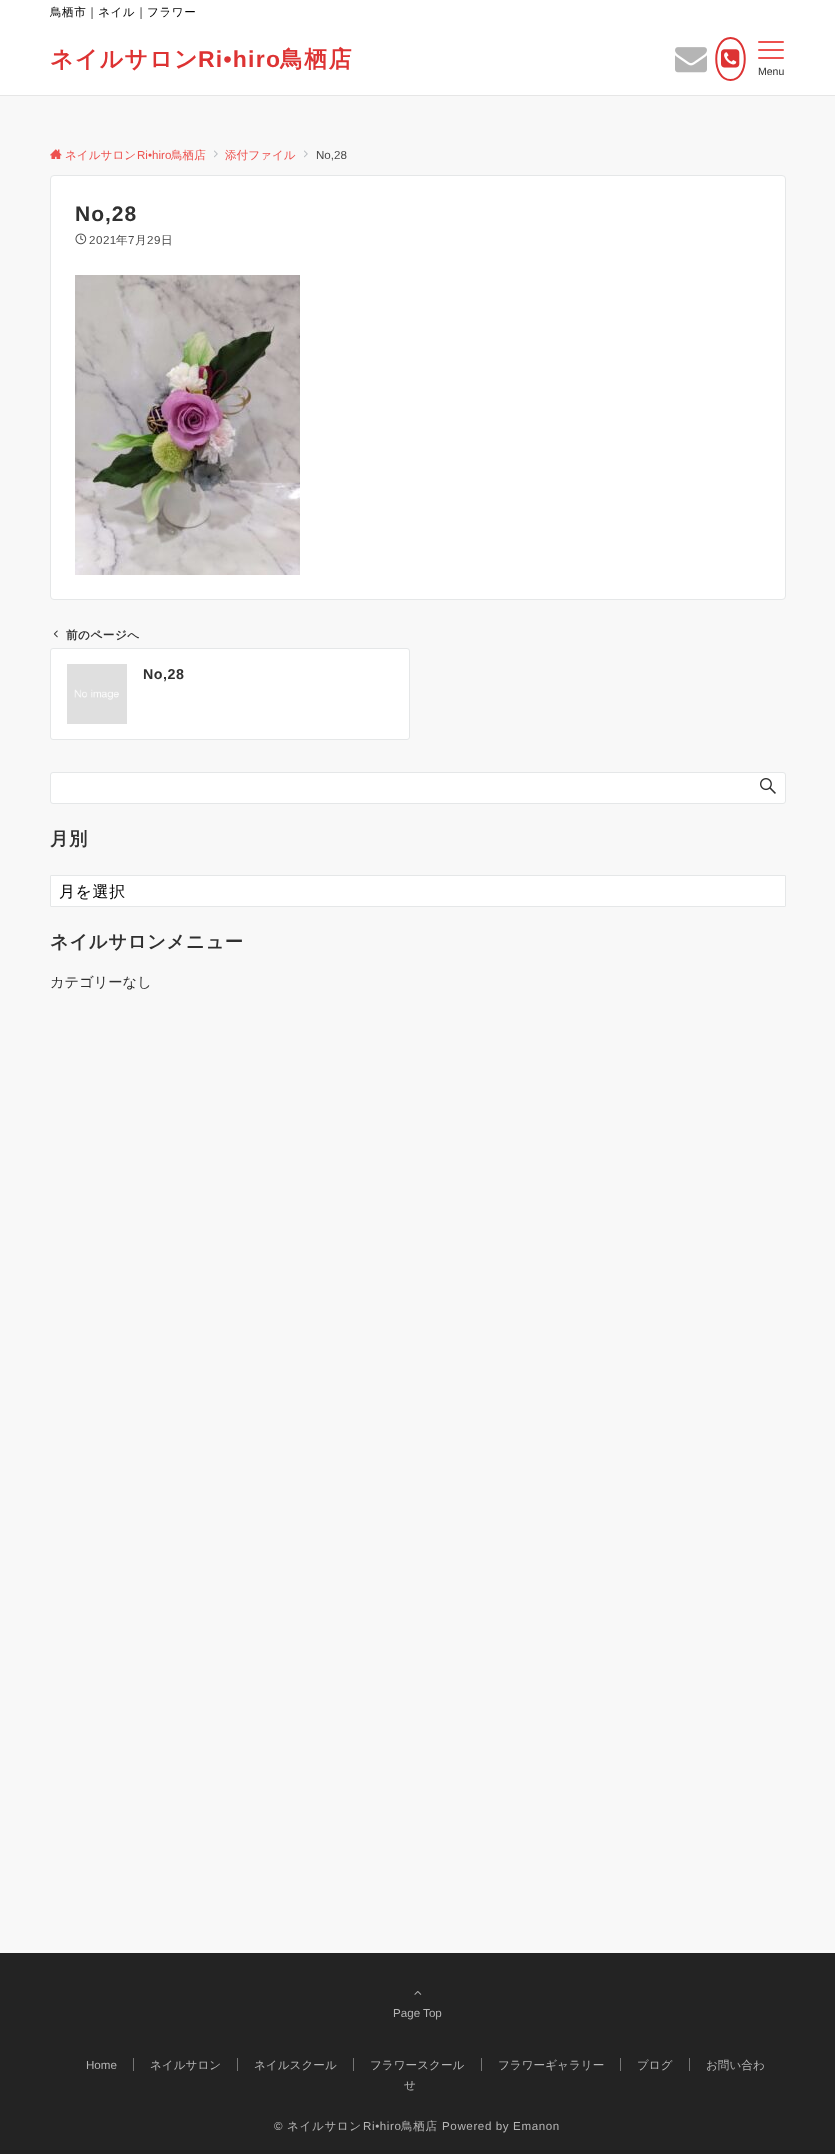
<?xml version="1.0" encoding="UTF-8"?>
<svg xmlns="http://www.w3.org/2000/svg" width="835" height="2154">
    <rect width="100%" height="100%" fill="#F8F8F8"/>
    <rect x="0" y="0" width="835" height="95" fill="#FFFFFF"/>
    <text x="50" y="16" font-family="WenQuanYi Zen Hei" font-size="11.6" font-weight="500" letter-spacing="0.5" fill="#000000">鳥栖市｜ネイル｜フラワー</text>
    <rect x="0" y="95" width="835" height="1" fill="#E6E6E6"/>
    <text x="50" y="67" font-family="WenQuanYi Zen Hei" font-size="23" font-weight="700" letter-spacing="1.25" fill="#DD3333">ネイルサロン</text>
    <text x="198" y="67" font-family="Liberation Sans" font-size="23" font-weight="700" letter-spacing="1.25" fill="#DD3333">Ri•hiro</text>
    <text x="280" y="67" font-family="WenQuanYi Zen Hei" font-size="23" font-weight="700" letter-spacing="1.25" fill="#DD3333">鳥栖店</text>
    <image x="675" y="47" width="32" height="26" href="img_01.png"/>
    <path d="M 730.5 38 C 749.5 38 749.5 80 730.5 80 C 711.5 80 711.5 38 730.5 38 Z" fill="none" stroke="#DD3333" stroke-width="2"/>
    <image x="721" y="49" width="19" height="19" href="img_02.png"/>
    <rect x="758" y="41" width="26" height="2" rx="1" fill="#ED514E"/>
    <rect x="758" y="49" width="26" height="2" rx="1" fill="#ED514E"/>
    <rect x="758" y="57" width="26" height="2" rx="1" fill="#ED514E"/>
    <text x="758" y="75" font-family="Liberation Sans" font-size="10.5" fill="#303030">Menu</text>
    <image x="50" y="149" width="12" height="10" href="img_03.png"/>
    <text x="65" y="159" font-family="WenQuanYi Zen Hei" font-size="11.6" font-weight="500" fill="#ED514E">ネイルサロン</text>
    <text x="137" y="159" font-family="Liberation Sans" font-size="11.6" fill="#ED514E">Ri•hiro</text>
    <text x="171" y="159" font-family="WenQuanYi Zen Hei" font-size="11.6" font-weight="500" fill="#ED514E">鳥栖店</text>
    <image x="214" y="150" width="4" height="8" href="img_04.png"/>
    <text x="225" y="159" font-family="WenQuanYi Zen Hei" font-size="11.6" font-weight="500" fill="#ED514E">添付ファイル</text>
    <image x="304" y="150" width="4" height="8" href="img_04.png"/>
    <text x="316" y="159" font-family="Liberation Sans" font-size="11.6" fill="#484848">No,28</text>
    <rect x="50.5" y="175.5" width="735" height="424" rx="3.5" fill="#FFFFFF" stroke="#E5E7E8"/>
    <text x="75" y="221" font-family="Liberation Sans" font-size="21" font-weight="700" letter-spacing="1" fill="#303030">No,28</text>
    <image x="75" y="233" width="12" height="12" href="img_05.png"/>
    <text x="89" y="244" font-family="Liberation Sans" font-size="11.6" letter-spacing="0.5" fill="#484848">2021</text>
    <text x="116" y="244" font-family="WenQuanYi Zen Hei" font-size="11.6" font-weight="500" letter-spacing="0.5" fill="#484848">年</text>
    <text x="128" y="244" font-family="Liberation Sans" font-size="11.6" letter-spacing="0.5" fill="#484848">7</text>
    <text x="135" y="244" font-family="WenQuanYi Zen Hei" font-size="11.6" font-weight="500" letter-spacing="0.5" fill="#484848">月</text>
    <text x="147" y="244" font-family="Liberation Sans" font-size="11.6" letter-spacing="0.5" fill="#484848">29</text>
    <text x="161" y="244" font-family="WenQuanYi Zen Hei" font-size="11.6" font-weight="500" letter-spacing="0.5" fill="#484848">日</text>
    <image x="75" y="275" width="225" height="300" href="img_06.png"/>
    <rect x="50.5" y="648.5" width="359" height="91" rx="2.5" fill="#FFFFFF" stroke="#E5E7E8"/>
    <image x="53" y="630" width="5" height="8" href="img_07.png"/>
    <text x="66" y="639" font-family="WenQuanYi Zen Hei" font-size="11.6" font-weight="700" letter-spacing="0.5" fill="#303030">前のページへ</text>
    <image x="67" y="664" width="60" height="60" href="img_08.png"/>
    <text x="143" y="679" font-family="Liberation Sans" font-size="14.25" font-weight="700" letter-spacing="0.5" fill="#303030">No,28</text>
    <rect x="50.5" y="772.5" width="735" height="31" rx="2.5" fill="#FFFFFF" stroke="#E5E7E8"/>
    <image x="760" y="778" width="16" height="16" href="img_09.png"/>
    <text x="50" y="845" font-family="WenQuanYi Zen Hei" font-size="18.25" font-weight="700" letter-spacing="0.75" fill="#303030">月別</text>
    <rect x="50.5" y="875.5" width="735" height="31" rx="0.5" fill="#FFFFFF" stroke="#E5E7E8"/>
    <text x="59" y="897" font-family="WenQuanYi Zen Hei" font-size="16" font-weight="500" letter-spacing="0.6" fill="#000000">月を選択</text>
    <text x="50" y="948" font-family="WenQuanYi Zen Hei" font-size="18.25" font-weight="700" letter-spacing="0.75" fill="#303030">ネイルサロンメニュー</text>
    <text x="50" y="987" font-family="WenQuanYi Zen Hei" font-size="14.25" font-weight="500" fill="#303030">カテゴリーなし</text>
    <rect x="0" y="1953" width="835" height="201" fill="#232323"/>
    <image x="414" y="1991" width="8" height="4" href="img_10.png"/>
    <text x="393" y="2017" font-family="Liberation Sans" font-size="11.6" fill="#B5B5B5">Page Top</text>
    <text x="86" y="2069" font-family="Liberation Sans" font-size="11.6" fill="#B5B5B5">Home</text>
    <rect x="133" y="2058" width="1" height="13" fill="#757575"/>
    <text x="150" y="2069" font-family="WenQuanYi Zen Hei" font-size="11.6" font-weight="500" fill="#B5B5B5">ネイルサロン</text>
    <rect x="237" y="2058" width="1" height="13" fill="#757575"/>
    <text x="254" y="2069" font-family="WenQuanYi Zen Hei" font-size="11.6" font-weight="500" fill="#B5B5B5">ネイルスクール</text>
    <rect x="353" y="2058" width="1" height="13" fill="#757575"/>
    <text x="370" y="2069" font-family="WenQuanYi Zen Hei" font-size="11.6" font-weight="500" fill="#B5B5B5">フラワースクール</text>
    <rect x="481" y="2058" width="1" height="13" fill="#757575"/>
    <text x="498" y="2069" font-family="WenQuanYi Zen Hei" font-size="11.6" font-weight="500" fill="#B5B5B5">フラワーギャラリー</text>
    <rect x="620" y="2058" width="1" height="13" fill="#757575"/>
    <text x="637" y="2069" font-family="WenQuanYi Zen Hei" font-size="11.6" font-weight="500" fill="#B5B5B5">ブログ</text>
    <rect x="689" y="2058" width="1" height="13" fill="#757575"/>
    <text x="706" y="2069" font-family="WenQuanYi Zen Hei" font-size="11.6" font-weight="500" fill="#B5B5B5">お問い合わ</text>
    <text x="404" y="2089" font-family="WenQuanYi Zen Hei" font-size="11.6" font-weight="500" fill="#B5B5B5">せ</text>
    <text x="274" y="2130" font-family="Liberation Sans" font-size="11.6" letter-spacing="0.6" fill="#B5B5B5">©</text>
    <text x="287" y="2130" font-family="WenQuanYi Zen Hei" font-size="11.6" font-weight="500" letter-spacing="0.6" fill="#B5B5B5">ネイルサロン</text>
    <text x="363" y="2130" font-family="Liberation Sans" font-size="11.6" letter-spacing="0.6" fill="#B5B5B5">Ri•hiro</text>
    <text x="401" y="2130" font-family="WenQuanYi Zen Hei" font-size="11.6" font-weight="500" letter-spacing="0.6" fill="#B5B5B5">鳥栖店</text>
    <text x="442" y="2130" font-family="Liberation Sans" font-size="11.6" letter-spacing="0.6" fill="#B5B5B5">Powered by Emanon</text>
</svg>
